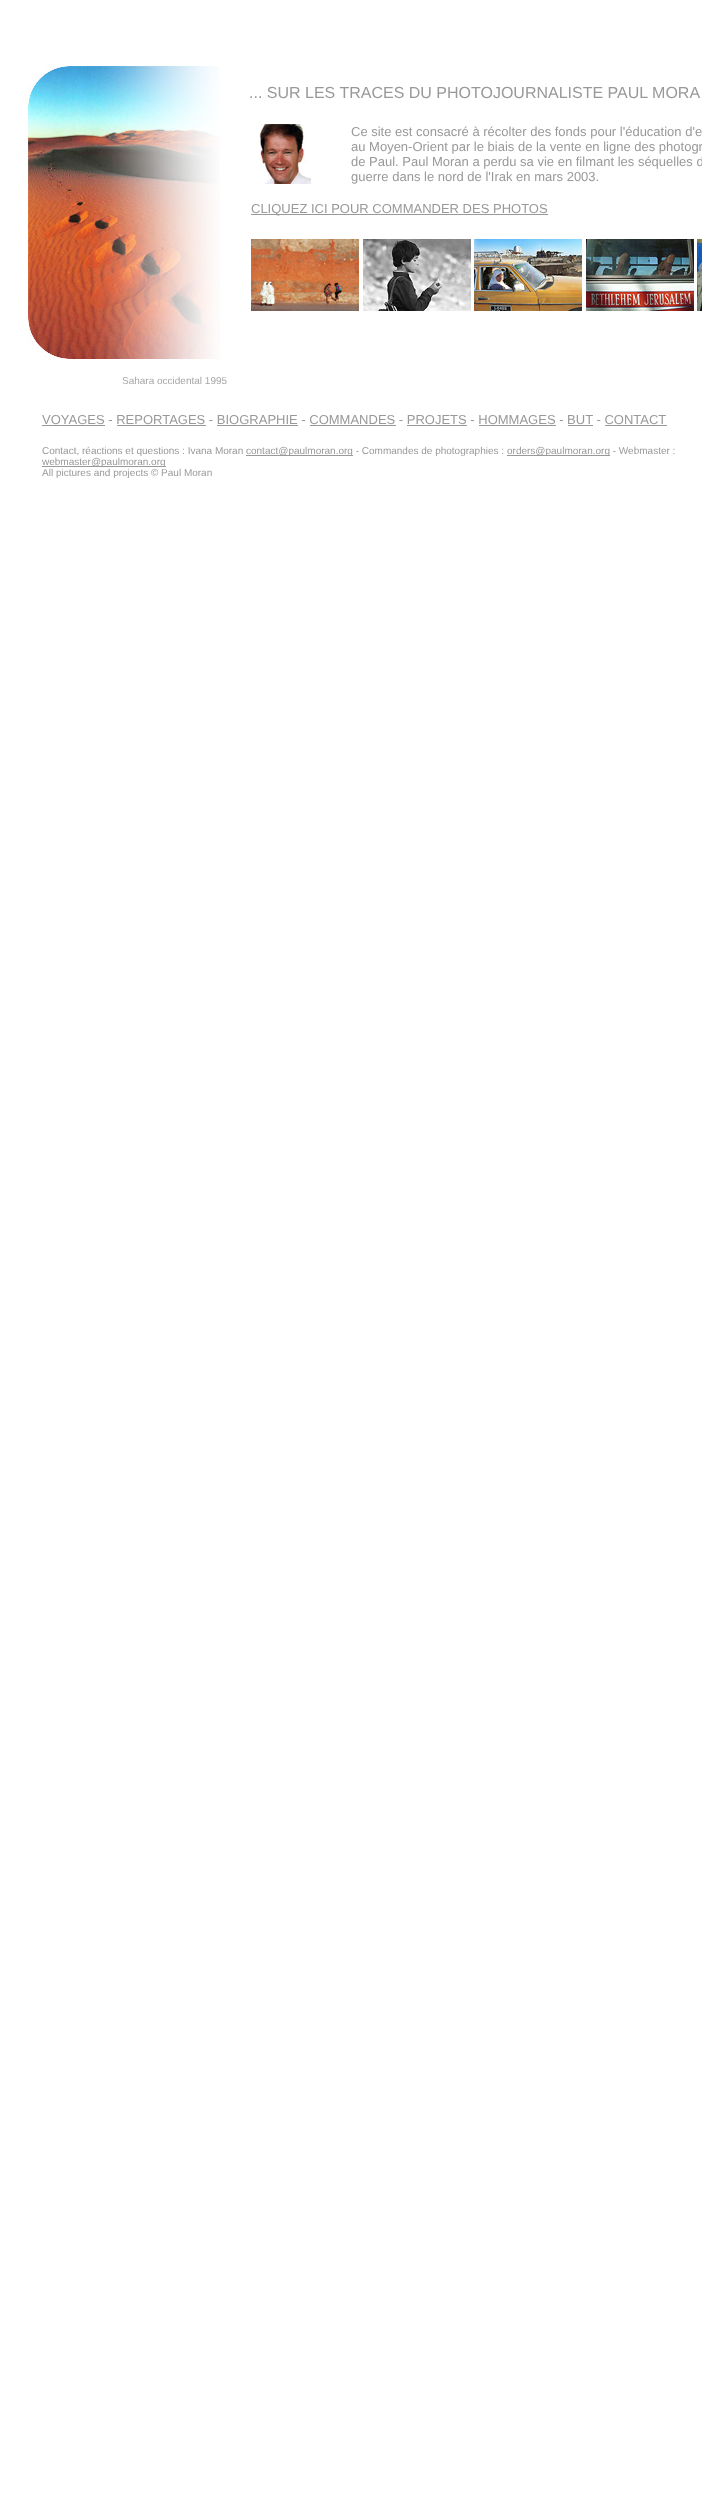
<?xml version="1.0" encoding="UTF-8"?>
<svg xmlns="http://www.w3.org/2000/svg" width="702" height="2509">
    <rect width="100%" height="100%" fill="#FFFFFF"/>
    <text x="249" y="98" font-family="Liberation Sans" font-size="16" fill="#999999">... SUR LES TRACES DU PHOTOJOURNALISTE PAUL MORA</text>
    <image x="259" y="124" width="52" height="60" href="img_01.png"/>
    <text font-family="Liberation Sans" font-size="13" fill="#999999">
        <tspan x="351" y="136">Ce site est consacré à récolter des fonds pour l'éducation d'e</tspan>
        <tspan x="351" y="151">au Moyen-Orient par le biais de la vente en ligne des photogr</tspan>
        <tspan x="351" y="166">de Paul. Paul Moran a perdu sa vie en filmant les séquelles d</tspan>
        <tspan x="351" y="181">guerre dans le nord de l'Irak en mars 2003.</tspan>
    </text>
    <rect x="251" y="214" width="297" height="1" fill="#999999"/>
    <text x="251" y="213" font-family="Liberation Sans" font-size="13" fill="#999999">CLIQUEZ ICI POUR COMMANDER DES PHOTOS</text>
    <image x="251" y="239" width="108" height="72" href="img_02.png"/>
    <image x="363" y="239" width="108" height="72" href="img_03.png"/>
    <image x="474" y="239" width="108" height="72" href="img_04.png"/>
    <image x="586" y="239" width="108" height="72" href="img_05.png"/>
    <image x="697" y="239" width="5" height="72" href="img_06.png"/>
    <image x="28" y="66" width="192" height="293" href="img_07.png"/>
    <text x="122" y="384" font-family="Liberation Sans" font-size="10" fill="#A6A6A6">Sahara occidental 1995</text>
    <text x="42" y="424" font-family="Liberation Sans" font-size="13" fill="#999999">VOYAGES - REPORTAGES - BIOGRAPHIE - COMMANDES - PROJETS - HOMMAGES - BUT - CONTACT</text>
    <rect x="42" y="425" width="63" height="1" fill="#999999"/>
    <rect x="117" y="425" width="89" height="1" fill="#999999"/>
    <rect x="217" y="425" width="81" height="1" fill="#999999"/>
    <rect x="310" y="425" width="86" height="1" fill="#999999"/>
    <rect x="407" y="425" width="60" height="1" fill="#999999"/>
    <rect x="479" y="425" width="77" height="1" fill="#999999"/>
    <rect x="568" y="425" width="25" height="1" fill="#999999"/>
    <rect x="605" y="425" width="62" height="1" fill="#999999"/>
    <text x="42" y="454" font-family="Liberation Sans" font-size="10" fill="#999999">Contact, réactions et questions : Ivana Moran</text>
    <rect x="246" y="455" width="107" height="1" fill="#999999"/>
    <text x="246" y="454" font-family="Liberation Sans" font-size="10" fill="#999999">contact@paulmoran.org - Commandes de photographies :</text>
    <rect x="507" y="455" width="103" height="1" fill="#999999"/>
    <text x="507" y="454" font-family="Liberation Sans" font-size="10" fill="#999999">orders@paulmoran.org - Webmaster :</text>
    <rect x="42" y="466" width="124" height="1" fill="#999999"/>
    <text font-family="Liberation Sans" font-size="10" fill="#999999">
        <tspan x="42" y="465">webmaster@paulmoran.org</tspan>
        <tspan x="42" y="476">All pictures and projects © Paul Moran</tspan>
    </text>
</svg>
